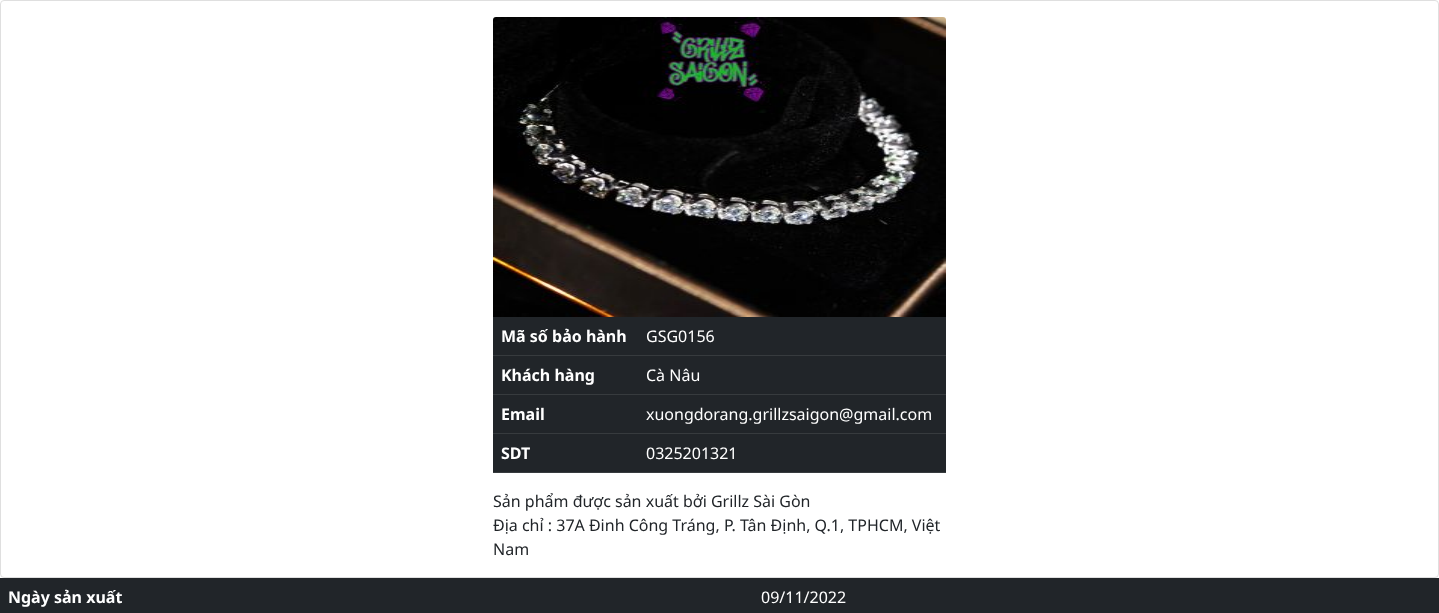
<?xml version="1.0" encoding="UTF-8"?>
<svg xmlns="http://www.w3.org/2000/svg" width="1439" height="613">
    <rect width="100%" height="100%" fill="#FFFFFF"/>
    <rect x="0.5" y="0.5" width="1438" height="577" rx="3.5" fill="none" stroke="#DFDFDF"/>
    <image x="493" y="17" width="453" height="300" href="img_01.png"/>
    <rect x="493" y="317" width="453" height="38" fill="#212529"/>
    <text x="501" y="342" font-family="Noto Sans" font-size="16" font-weight="700" fill="#FFFFFF">Mã số bảo hành</text>
    <rect x="493" y="355" width="453" height="1" fill="#373B3E"/>
    <text x="646" y="342" font-family="Noto Sans" font-size="16" fill="#FFFFFF">GSG0156</text>
    <rect x="493" y="356" width="453" height="38" fill="#212529"/>
    <text x="501" y="381" font-family="Noto Sans" font-size="16" font-weight="700" fill="#FFFFFF">Khách hàng</text>
    <rect x="493" y="394" width="453" height="1" fill="#373B3E"/>
    <text x="646" y="381" font-family="Noto Sans" font-size="16" fill="#FFFFFF">Cà Nâu</text>
    <rect x="493" y="395" width="453" height="38" fill="#212529"/>
    <text x="501" y="420" font-family="Noto Sans" font-size="16" font-weight="700" fill="#FFFFFF">Email</text>
    <rect x="493" y="433" width="453" height="1" fill="#373B3E"/>
    <text x="646" y="420" font-family="Noto Sans" font-size="16" fill="#FFFFFF">xuongdorang.grillzsaigon@gmail.com</text>
    <rect x="493" y="434" width="453" height="38" fill="#212529"/>
    <text x="501" y="459" font-family="Noto Sans" font-size="16" font-weight="700" fill="#FFFFFF">SDT</text>
    <rect x="493" y="472" width="453" height="1" fill="#373B3E"/>
    <text x="646" y="459" font-family="Noto Sans" font-size="16" fill="#FFFFFF">0325201321</text>
    <text font-family="Noto Sans" font-size="16" fill="#212529">
        <tspan x="493" y="507">Sản phẩm được sản xuất bởi Grillz Sài Gòn</tspan>
        <tspan x="493" y="531">Địa chỉ : 37A Đinh Công Tráng, P. Tân Định, Q.1, TPHCM, Việt</tspan>
        <tspan x="493" y="555">Nam</tspan>
    </text>
    <rect x="0" y="578" width="1439" height="35" fill="#212529"/>
    <text x="8" y="603" font-family="Noto Sans" font-size="16" font-weight="700" fill="#FFFFFF">Ngày sản xuất</text>
    <text x="761" y="603" font-family="Noto Sans" font-size="16" fill="#FFFFFF">09/11/2022</text>
</svg>
